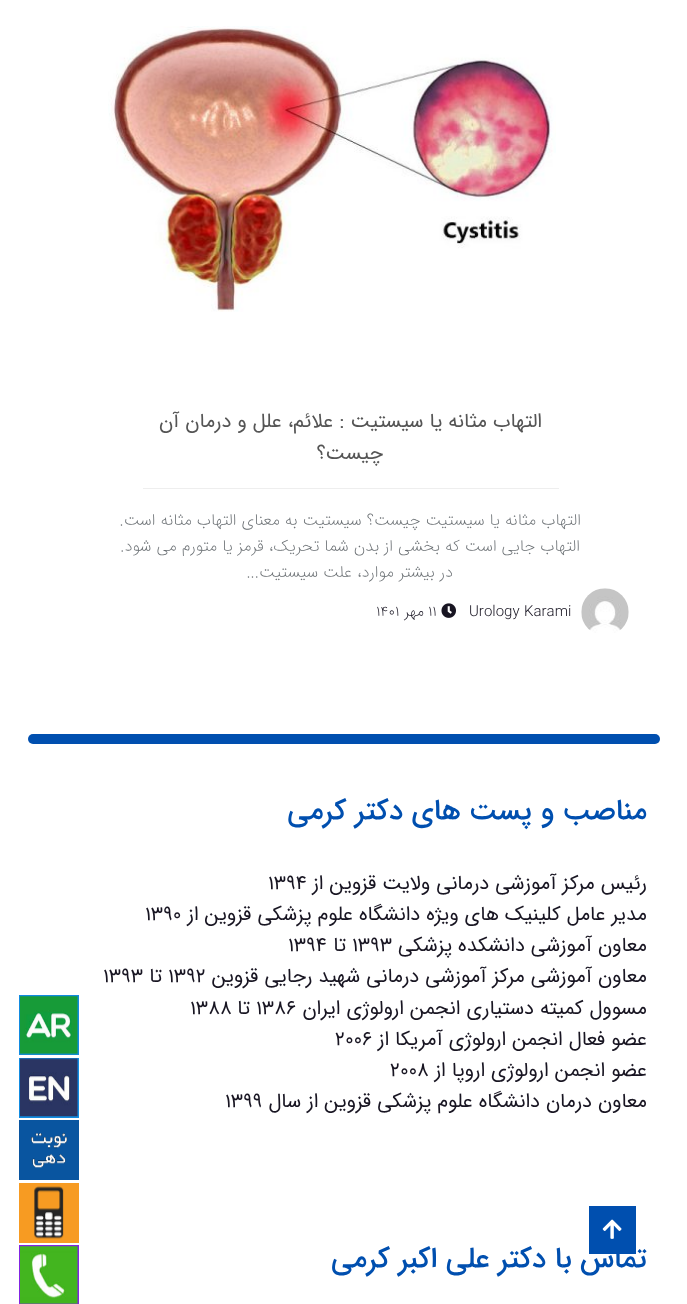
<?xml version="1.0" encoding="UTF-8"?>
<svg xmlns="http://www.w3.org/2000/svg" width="687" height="1304">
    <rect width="100%" height="100%" fill="#FFFFFF"/>
    <image x="108" y="26" width="448" height="286" href="img_01.png"/>
    <rect x="143" y="488" width="416" height="1" fill="#EEEEEE"/>
    <text x="542" y="427" font-family="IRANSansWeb" font-size="20" direction="rtl" fill="#555555">التهاب مثانه یا سیستیت : علائم، علل و درمان آن</text>
    <text x="383" y="459" font-family="IRANSansWeb" font-size="20" direction="rtl" fill="#555555">چیست؟</text>
    <text x="581" y="525" font-family="IRANSansWeb" font-size="16.25" font-weight="200" direction="rtl" fill="#6B7074">التهاب مثانه یا سیستیت چیست؟ سیستیت به معنای التهاب مثانه است.</text>
    <text x="580" y="551" font-family="IRANSansWeb" font-size="16.25" font-weight="200" direction="rtl" fill="#6B7074">التهاب جایی است که بخشی از بدن شما تحریک، قرمز یا متورم می شود.</text>
    <text x="453" y="577" font-family="IRANSansWeb" font-size="16.25" font-weight="200" direction="rtl" fill="#6B7074">در بیشتر موارد، علت سیستیت...</text>
    <image x="581" y="588" width="48" height="45" href="img_02.png"/>
    <text x="469" y="616" font-family="IRANSansWeb" font-size="15" font-weight="200" fill="#181522">Urology Karami</text>
    <image x="441" y="603" width="15" height="15" href="img_03.png"/>
    <text x="428" y="616" font-family="IRANSansWeb" font-size="15" font-weight="200" fill="#181522">۱۱</text>
    <text x="424" y="616" font-family="IRANSansWeb" font-size="15" font-weight="200" direction="rtl" fill="#181522">مهر</text>
    <text x="376" y="616" font-family="IRANSansWeb" font-size="15" font-weight="200" fill="#181522">۱۴۰۱</text>
    <rect x="28" y="734" width="632" height="10" rx="5" fill="#004FAF"/>
    <text x="647" y="819" font-family="IRANSansWeb" font-size="28.75" font-weight="500" direction="rtl" fill="#004FAF">مناصب و پست های دکتر کرمی</text>
    <text x="647" y="889" font-family="IRANSansWeb" font-size="20" direction="rtl" fill="#181522">رئیس مرکز آموزشی درمانی ولایت قزوین از</text>
    <text x="268" y="889" font-family="IRANSansWeb" font-size="20" fill="#181522">۱۳۹۴</text>
    <text x="647" y="920" font-family="IRANSansWeb" font-size="20" direction="rtl" fill="#181522">مدیر عامل کلینیک های ویژه دانشگاه علوم پزشکی قزوین از</text>
    <text x="145" y="920" font-family="IRANSansWeb" font-size="20" fill="#181522">۱۳۹۰</text>
    <text x="647" y="951" font-family="IRANSansWeb" font-size="20" direction="rtl" fill="#181522">معاون آموزشی دانشکده پزشکی</text>
    <text x="352" y="951" font-family="IRANSansWeb" font-size="20" fill="#181522">۱۳۹۳</text>
    <text x="346" y="951" font-family="IRANSansWeb" font-size="20" direction="rtl" fill="#181522">تا</text>
    <text x="288" y="951" font-family="IRANSansWeb" font-size="20" fill="#181522">۱۳۹۴</text>
    <text x="647" y="982" font-family="IRANSansWeb" font-size="20" direction="rtl" fill="#181522">معاون آموزشی مرکز آموزشی درمانی شهید رجایی قزوین</text>
    <text x="168" y="982" font-family="IRANSansWeb" font-size="20" fill="#181522">۱۳۹۲</text>
    <text x="162" y="982" font-family="IRANSansWeb" font-size="20" direction="rtl" fill="#181522">تا</text>
    <text x="103" y="982" font-family="IRANSansWeb" font-size="20" fill="#181522">۱۳۹۳</text>
    <text x="647" y="1014" font-family="IRANSansWeb" font-size="20" direction="rtl" fill="#181522">مسوول کمیته دستیاری انجمن ارولوژی ایران</text>
    <text x="256" y="1014" font-family="IRANSansWeb" font-size="20" fill="#181522">۱۳۸۶</text>
    <text x="250" y="1014" font-family="IRANSansWeb" font-size="20" direction="rtl" fill="#181522">تا</text>
    <text x="190" y="1014" font-family="IRANSansWeb" font-size="20" fill="#181522">۱۳۸۸</text>
    <text x="647" y="1045" font-family="IRANSansWeb" font-size="20" direction="rtl" fill="#181522">عضو فعال انجمن ارولوژی آمریکا از</text>
    <text x="335" y="1045" font-family="IRANSansWeb" font-size="20" fill="#181522">۲۰۰۶</text>
    <text x="647" y="1076" font-family="IRANSansWeb" font-size="20" direction="rtl" fill="#181522">عضو انجمن ارولوژی اروپا از</text>
    <text x="390" y="1076" font-family="IRANSansWeb" font-size="20" fill="#181522">۲۰۰۸</text>
    <text x="647" y="1107" font-family="IRANSansWeb" font-size="20" direction="rtl" fill="#181522">معاون درمان دانشگاه علوم پزشکی قزوین از سال</text>
    <text x="225" y="1107" font-family="IRANSansWeb" font-size="20" fill="#181522">۱۳۹۹</text>
    <text x="647" y="1267" font-family="IRANSansWeb" font-size="28.75" font-weight="500" direction="rtl" fill="#004FAF">تماس با دکتر علی اکبر کرمی</text>
    <rect x="19" y="995" width="60" height="60" fill="#128BE0"/>
    <image x="20" y="996" width="58" height="59" href="img_04.png"/>
    <rect x="19" y="1058" width="60" height="60" fill="#128BE0"/>
    <image x="20" y="1058" width="58" height="59" href="img_05.png"/>
    <rect x="19" y="1120" width="60" height="60" fill="#0955A0"/>
    <image x="31" y="1133" width="37" height="35" href="img_06.png"/>
    <rect x="19" y="1183" width="60" height="60" fill="#F79B22"/>
    <image x="34" y="1186" width="30" height="53" href="img_07.png"/>
    <rect x="19" y="1245" width="60" height="59" fill="#8224E3"/>
    <image x="20" y="1246" width="58" height="58" href="img_08.png"/>
    <rect x="589" y="1206" width="47" height="48" fill="#004FAF"/>
    <image x="602" y="1219" width="20" height="20" href="img_09.png"/>
</svg>
